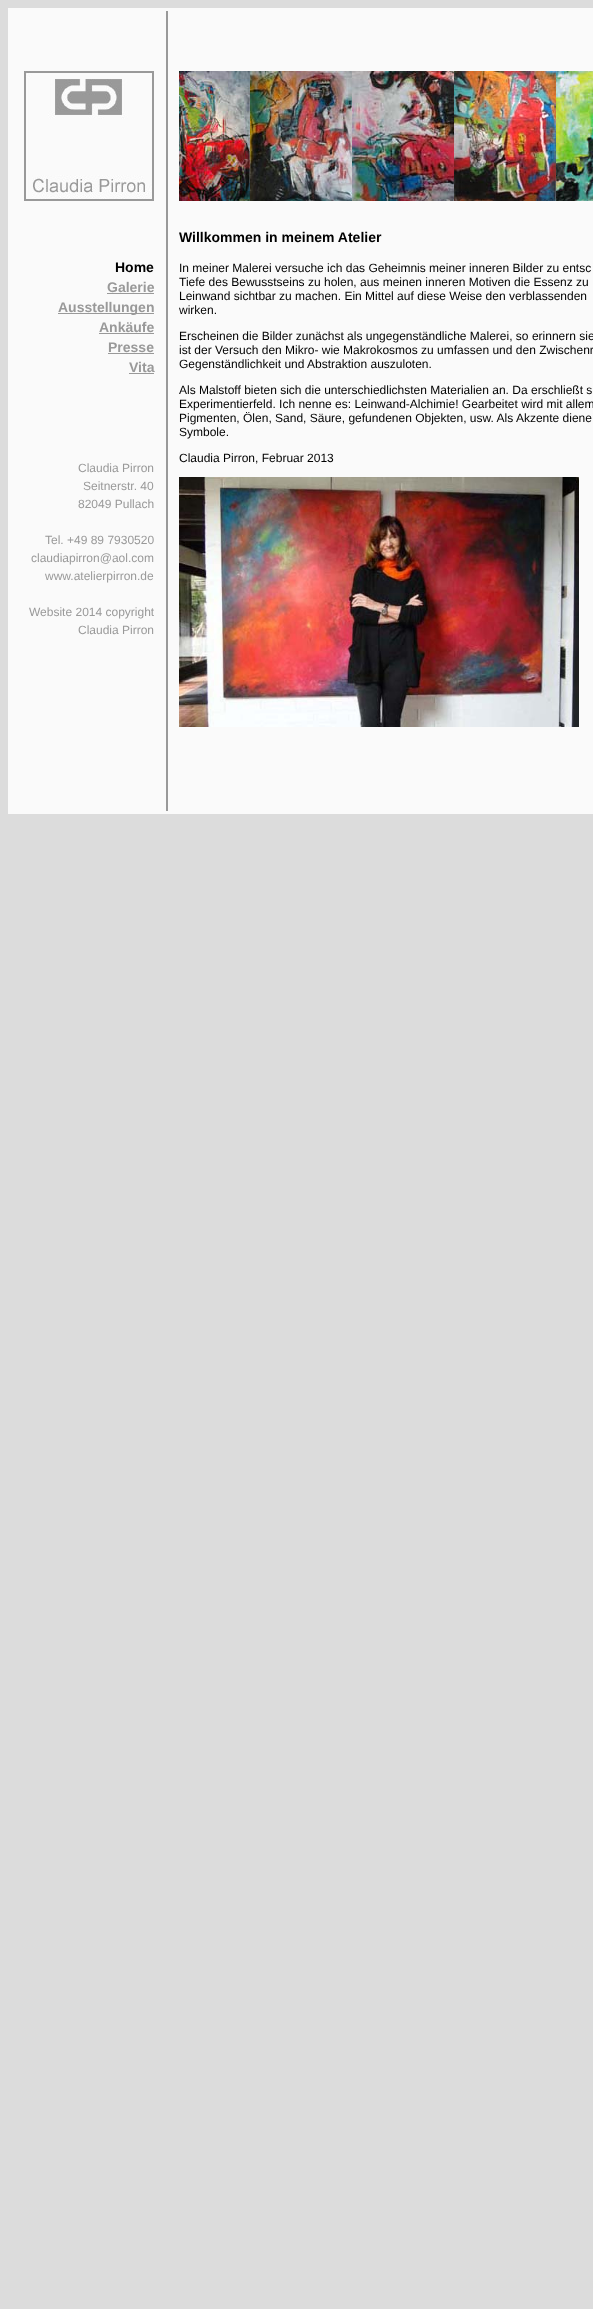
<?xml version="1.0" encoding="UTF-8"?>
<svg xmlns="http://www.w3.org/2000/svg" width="593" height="2309">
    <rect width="100%" height="100%" fill="#DCDCDC"/>
    <rect x="8" y="8" width="585" height="806" fill="#FAFAFA"/>
    <rect x="166" y="11" width="2" height="800" fill="#999999"/>
    <image x="24" y="71" width="130" height="130" href="img_01.png"/>
    <text x="115" y="272" font-family="Liberation Sans" font-size="14" font-weight="700" fill="#000000">Home</text>
    <text x="107" y="292" font-family="Liberation Sans" font-size="14" font-weight="700" fill="#999999">Galerie</text>
    <rect x="107" y="293" width="47" height="1" fill="#999999"/>
    <rect x="58" y="313" width="96" height="1" fill="#999999"/>
    <text x="58" y="312" font-family="Liberation Sans" font-size="14" font-weight="700" fill="#999999">Ausstellungen</text>
    <text x="99" y="332" font-family="Liberation Sans" font-size="14" font-weight="700" fill="#999999">Ankäufe</text>
    <rect x="99" y="333" width="55" height="1" fill="#999999"/>
    <text x="108" y="352" font-family="Liberation Sans" font-size="14" font-weight="700" fill="#999999">Presse</text>
    <rect x="108" y="353" width="46" height="1" fill="#999999"/>
    <text x="129" y="372" font-family="Liberation Sans" font-size="14" font-weight="700" fill="#999999">Vita</text>
    <rect x="129" y="373" width="25" height="1" fill="#999999"/>
    <text x="78" y="472" font-family="Liberation Sans" font-size="12" fill="#999999">Claudia Pirron</text>
    <text x="83" y="490" font-family="Liberation Sans" font-size="12" fill="#999999">Seitnerstr. 40</text>
    <text x="78" y="508" font-family="Liberation Sans" font-size="12" fill="#999999">82049 Pullach</text>
    <text x="45" y="544" font-family="Liberation Sans" font-size="12" fill="#999999">Tel. +49 89 7930520</text>
    <text x="31" y="562" font-family="Liberation Sans" font-size="12" fill="#999999">claudiapirron@aol.com</text>
    <text x="45" y="580" font-family="Liberation Sans" font-size="12" fill="#999999">www.atelierpirron.de</text>
    <text x="29" y="616" font-family="Liberation Sans" font-size="12" fill="#999999">Website 2014 copyright</text>
    <text x="78" y="634" font-family="Liberation Sans" font-size="12" fill="#999999">Claudia Pirron</text>
    <image x="179" y="71" width="71" height="130" href="img_02.png"/>
    <image x="250" y="71" width="102" height="130" href="img_03.png"/>
    <image x="352" y="71" width="102" height="130" href="img_04.png"/>
    <image x="454" y="71" width="102" height="130" href="img_05.png"/>
    <image x="556" y="71" width="37" height="130" href="img_06.png"/>
    <text x="179" y="242" font-family="Liberation Sans" font-size="14" font-weight="700" fill="#000000">Willkommen in meinem Atelier</text>
    <text font-family="Liberation Sans" font-size="12" fill="#000000">
        <tspan x="179" y="272">In meiner Malerei versuche ich das Geheimnis meiner inneren Bilder zu entsc</tspan>
        <tspan x="179" y="286">Tiefe des Bewusstseins zu holen, aus meinen inneren Motiven die Essenz zu</tspan>
        <tspan x="179" y="300">Leinwand sichtbar zu machen. Ein Mittel auf diese Weise den verblassenden</tspan>
        <tspan x="179" y="314">wirken.</tspan>
    </text>
    <text font-family="Liberation Sans" font-size="12" fill="#000000">
        <tspan x="179" y="340">Erscheinen die Bilder zunächst als ungegenständliche Malerei, so erinnern sie</tspan>
        <tspan x="179" y="354">ist der Versuch den Mikro- wie Makrokosmos zu umfassen und den Zwischenr</tspan>
        <tspan x="179" y="368">Gegenständlichkeit und Abstraktion auszuloten.</tspan>
    </text>
    <text font-family="Liberation Sans" font-size="12" fill="#000000">
        <tspan x="179" y="394">Als Malstoff bieten sich die unterschiedlichsten Materialien an. Da erschließt s</tspan>
        <tspan x="179" y="408">Experimentierfeld. Ich nenne es: Leinwand-Alchimie! Gearbeitet wird mit allem</tspan>
        <tspan x="179" y="422">Pigmenten, Ölen, Sand, Säure, gefundenen Objekten, usw. Als Akzente diene</tspan>
        <tspan x="179" y="436">Symbole.</tspan>
    </text>
    <text x="179" y="462" font-family="Liberation Sans" font-size="12" fill="#000000">Claudia Pirron, Februar 2013</text>
    <image x="179" y="477" width="400" height="250" href="img_07.png"/>
</svg>
